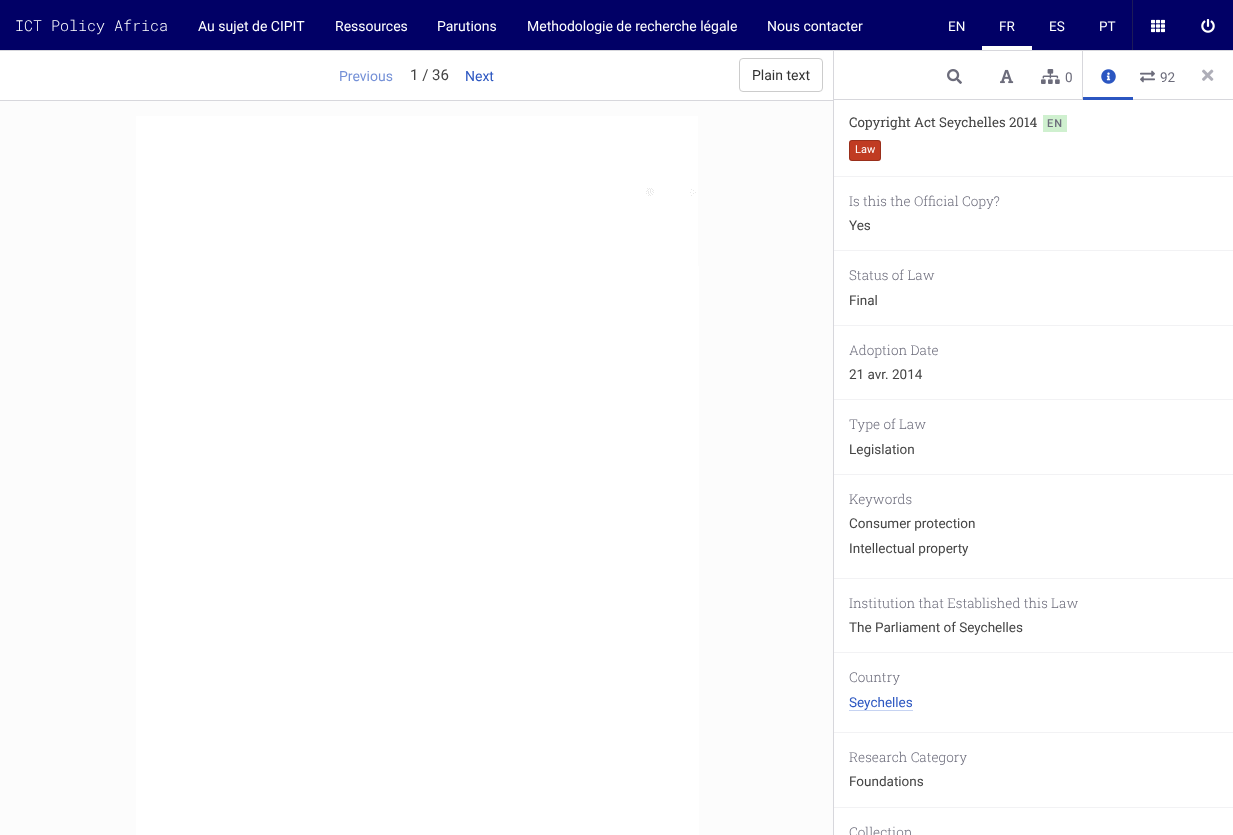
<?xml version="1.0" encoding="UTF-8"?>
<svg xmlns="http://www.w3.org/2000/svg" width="1233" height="835">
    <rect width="100%" height="100%" fill="#FCFCFC"/>
    <rect x="834" y="51" width="399" height="784" fill="#FFFFFF"/>
    <rect x="1082" y="49" width="1" height="50" fill="#D7D7DC"/>
    <rect x="0" y="0" width="1233" height="50" fill="#010066"/>
    <rect x="833" y="50" width="1" height="785" fill="#D7D7DC"/>
    <rect x="0" y="50" width="1233" height="1" fill="#D7D7DC"/>
    <text x="15" y="31" font-family="Roboto Mono" font-size="15" font-weight="300" fill="#FFFFFF">ICT Policy Africa</text>
    <text x="198" y="31" font-family="Roboto" font-size="14" fill="#FFFFFF">Au sujet de CIPIT</text>
    <text x="335" y="31" font-family="Roboto" font-size="14" fill="#FFFFFF">Ressources</text>
    <text x="437" y="31" font-family="Roboto" font-size="14" fill="#FFFFFF">Parutions</text>
    <text x="527" y="31" font-family="Roboto" font-size="14" fill="#FFFFFF">Methodologie de recherche légale</text>
    <text x="767" y="31" font-family="Roboto" font-size="14" fill="#FFFFFF">Nous contacter</text>
    <rect x="1132" y="0" width="1" height="50" fill="#1C1B58"/>
    <text x="948" y="31" font-family="Roboto" font-size="13.5" fill="#FFFFFF">EN</text>
    <rect x="982" y="46" width="50" height="4" fill="#FFFFFF"/>
    <text x="999" y="31" font-family="Roboto" font-size="13.5" fill="#FFFFFF">FR</text>
    <text x="1049" y="31" font-family="Roboto" font-size="13.5" fill="#FFFFFF">ES</text>
    <text x="1099" y="31" font-family="Roboto" font-size="13.5" fill="#FFFFFF">PT</text>
    <image x="1151" y="19" width="14" height="14" href="img_01.png"/>
    <image x="1201" y="19" width="14" height="14" href="img_02.png"/>
    <rect x="0" y="51" width="833" height="49" fill="#FFFFFF"/>
    <rect x="0" y="100" width="833" height="1" fill="#D7D7DC"/>
    <text x="339" y="81" font-family="Roboto" font-size="14" fill="#7591D7">Previous</text>
    <text x="410" y="80" font-family="Roboto" font-size="15" fill="#444444">1 / 36</text>
    <text x="465" y="81" font-family="Roboto" font-size="14" fill="#2B56C1">Next</text>
    <rect x="739.5" y="58.5" width="83" height="33" rx="3.5" fill="none" stroke="#CCCCCC"/>
    <text x="752" y="80" font-family="Roboto" font-size="14" fill="#333333">Plain text</text>
    <rect x="834" y="99" width="399" height="1" fill="#D7D7DC"/>
    <image x="947" y="69" width="15" height="15" href="img_03.png"/>
    <image x="1000" y="69" width="14" height="15" href="img_04.png"/>
    <image x="1041" y="69" width="19" height="15" href="img_05.png"/>
    <text x="1065" y="82" font-family="Roboto" font-size="13.5" fill="#6C6C7B">0</text>
    <image x="1101" y="69" width="15" height="15" href="img_06.png"/>
    <rect x="1083" y="97" width="50" height="3" fill="#2B56C1"/>
    <image x="1140" y="70" width="15" height="13" href="img_07.png"/>
    <text x="1160" y="82" font-family="Roboto" font-size="13.5" fill="#6C6C7B">92</text>
    <image x="1202" y="69" width="12" height="12" href="img_08.png"/>
    <text x="849" y="127" font-family="Roboto Slab" font-size="13.4" fill="#444444">Copyright Act Seychelles 2014</text>
    <rect x="1043" y="115" width="24" height="17" fill="#CFF0CF"/>
    <text x="1047" y="127" font-family="Roboto" font-size="11" font-weight="500" letter-spacing="1" fill="#6C6C7B">EN</text>
    <rect x="849" y="140" width="32" height="21" rx="3" fill="#C03B22"/>
    <rect x="849.5" y="140.5" width="31" height="20" rx="2.5" fill="none" stroke="#000000" stroke-opacity="0.2"/>
    <text x="855" y="153" font-family="Roboto" font-size="11" fill="#FFFFFF">Law</text>
    <rect x="834" y="176" width="399" height="1" fill="#F2F2F4"/>
    <text x="849" y="206" font-family="Roboto Slab" font-size="13.5" font-weight="300" fill="#6C6C7B">Is this the Official Copy?</text>
    <text x="849" y="230" font-family="Roboto" font-size="13.5" fill="#444444">Yes</text>
    <rect x="834" y="250" width="399" height="1" fill="#F2F2F4"/>
    <text x="849" y="280" font-family="Roboto Slab" font-size="13.5" font-weight="300" fill="#6C6C7B">Status of Law</text>
    <text x="849" y="305" font-family="Roboto" font-size="13.5" fill="#444444">Final</text>
    <rect x="834" y="325" width="399" height="1" fill="#F2F2F4"/>
    <text x="849" y="355" font-family="Roboto Slab" font-size="13.5" font-weight="300" fill="#6C6C7B">Adoption Date</text>
    <text x="849" y="379" font-family="Roboto" font-size="13.5" fill="#444444">21 avr. 2014</text>
    <rect x="834" y="399" width="399" height="1" fill="#F2F2F4"/>
    <text x="849" y="429" font-family="Roboto Slab" font-size="13.5" font-weight="300" fill="#6C6C7B">Type of Law</text>
    <text x="849" y="454" font-family="Roboto" font-size="13.5" fill="#444444">Legislation</text>
    <rect x="834" y="474" width="399" height="1" fill="#F2F2F4"/>
    <text x="849" y="504" font-family="Roboto Slab" font-size="13.5" font-weight="300" fill="#6C6C7B">Keywords</text>
    <text font-family="Roboto" font-size="13.5" fill="#444444">
        <tspan x="849" y="528">Consumer protection</tspan>
        <tspan x="849" y="553">Intellectual property</tspan>
    </text>
    <rect x="834" y="578" width="399" height="1" fill="#F2F2F4"/>
    <text x="849" y="608" font-family="Roboto Slab" font-size="13.5" font-weight="300" fill="#6C6C7B">Institution that Established this Law</text>
    <text x="849" y="632" font-family="Roboto" font-size="13.5" fill="#444444">The Parliament of Seychelles</text>
    <rect x="834" y="652" width="399" height="1" fill="#F2F2F4"/>
    <text x="849" y="682" font-family="Roboto Slab" font-size="13.5" font-weight="300" fill="#6C6C7B">Country</text>
    <text x="849" y="707" font-family="Roboto" font-size="13.5" fill="#2B56C1">Seychelles</text>
    <rect x="849" y="710" width="64" height="1" fill="#C6D3F2"/>
    <rect x="834" y="732" width="399" height="1" fill="#F2F2F4"/>
    <text x="849" y="762" font-family="Roboto Slab" font-size="13.5" font-weight="300" fill="#6C6C7B">Research Category</text>
    <text x="849" y="786" font-family="Roboto" font-size="13.5" fill="#444444">Foundations</text>
    <rect x="834" y="807" width="399" height="1" fill="#F2F2F4"/>
    <text x="849" y="837" font-family="Roboto Slab" font-size="13.5" font-weight="300" fill="#6C6C7B">Collection</text>
    <rect x="136" y="116" width="562" height="719" fill="#FFFFFF"/>
    <image x="646" y="188" width="50" height="8" href="img_09.png"/>
    <rect x="698" y="266" width="1" height="569" fill="#FFFFFF"/>
</svg>
